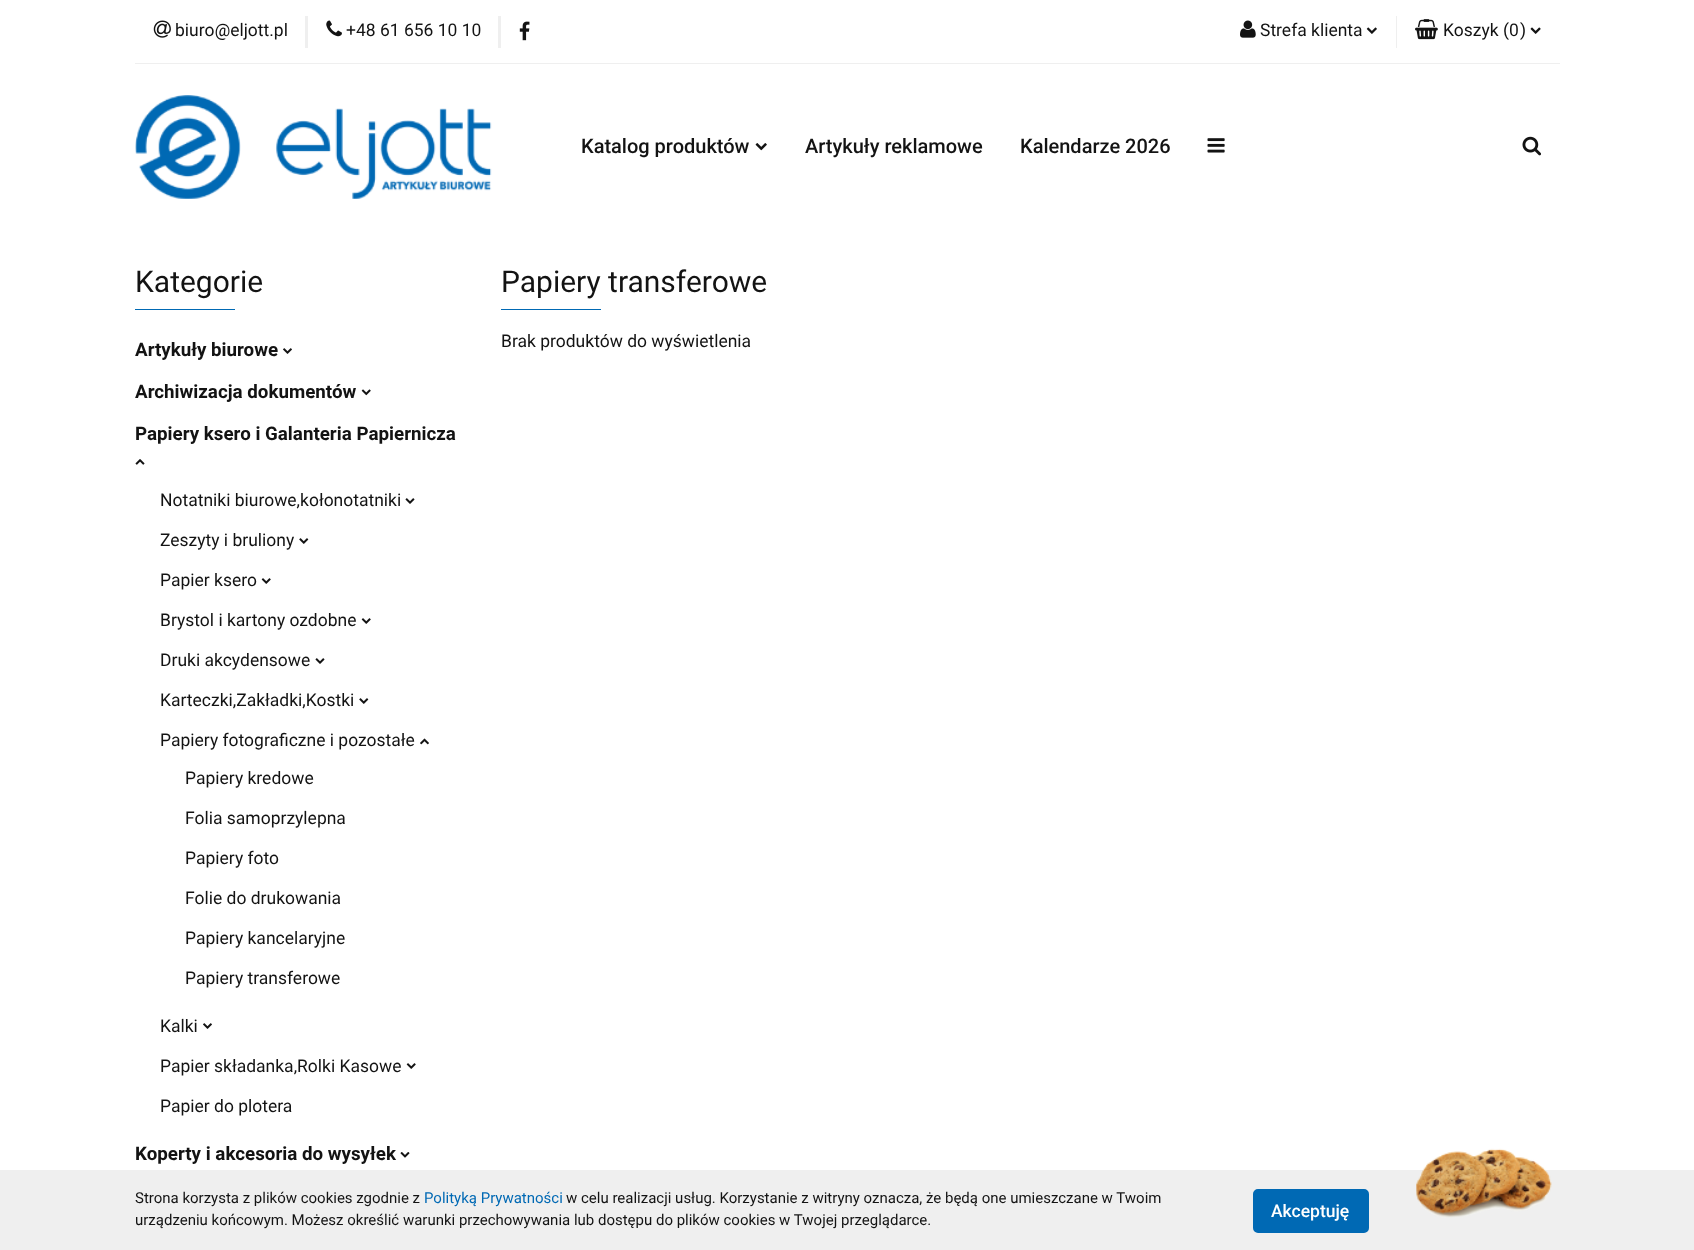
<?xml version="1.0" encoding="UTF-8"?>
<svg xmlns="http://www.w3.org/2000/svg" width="1694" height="1250">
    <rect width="100%" height="100%" fill="#FFFFFF"/>
    <rect x="135" y="63" width="1425" height="1" fill="#EFEFEF"/>
    <image x="153" y="20" width="18" height="18" href="img_01.png"/>
    <text x="175" y="36" font-family="Roboto" font-size="17.5" fill="#131313">biuro@eljott.pl</text>
    <rect x="305" y="16" width="3" height="32" fill="#EFEFEF"/>
    <image x="326" y="20" width="16" height="17" href="img_02.png"/>
    <text x="346" y="36" font-family="Roboto" font-size="17.5" fill="#131313">+48 61 656 10 10</text>
    <rect x="498" y="16" width="3" height="32" fill="#EFEFEF"/>
    <image x="519" y="21" width="11" height="20" href="img_03.png"/>
    <image x="1240" y="20" width="16" height="18" href="img_04.png"/>
    <text x="1260" y="36" font-family="Roboto" font-size="17.5" fill="#131313">Strefa klienta</text>
    <image x="1366" y="27" width="11" height="7" href="img_05.png"/>
    <rect x="1396" y="16" width="1" height="32" fill="#EFEFEF"/>
    <image x="1415" y="19" width="23" height="21" href="img_06.png"/>
    <text x="1443" y="36" font-family="Roboto" font-size="17.5" fill="#131313">Koszyk (</text>
    <text x="1509" y="36" font-family="Roboto" font-size="17.5" fill="#131313">0</text>
    <text x="1520" y="36" font-family="Roboto" font-size="17.5" fill="#131313">)</text>
    <image x="1530" y="27" width="11" height="7" href="img_07.png"/>
    <image x="135" y="95" width="357" height="104" href="img_08.png"/>
    <text x="581" y="153" font-family="Roboto" font-size="20" font-weight="500" fill="#131313">Katalog produktów</text>
    <image x="755" y="143" width="12" height="8" href="img_09.png"/>
    <text x="805" y="153" font-family="Roboto" font-size="20" font-weight="500" fill="#131313">Artykuły reklamowe</text>
    <text x="1020" y="153" font-family="Roboto" font-size="20" font-weight="500" fill="#131313">Kalendarze 2026</text>
    <image x="1207" y="138" width="18" height="15" href="img_10.png"/>
    <image x="1522" y="136" width="19" height="20" href="img_11.png"/>
    <text x="135" y="292" font-family="Roboto" font-size="30" fill="#131313">Kategorie</text>
    <rect x="135" y="309" width="100" height="1" fill="#0069B4"/>
    <text x="135" y="356" font-family="Roboto" font-size="18.75" font-weight="700" fill="#131313">Artykuły biurowe</text>
    <image x="283" y="348" width="9" height="6" href="img_12.png"/>
    <text x="135" y="398" font-family="Roboto" font-size="18.75" font-weight="700" fill="#131313">Archiwizacja dokumentów</text>
    <image x="361" y="389" width="10" height="7" href="img_13.png"/>
    <text x="135" y="440" font-family="Roboto" font-size="18.75" font-weight="700" fill="#131313">Papiery ksero i Galanteria Papiernicza</text>
    <image x="135" y="459" width="10" height="6" href="img_14.png"/>
    <text x="160" y="506" font-family="Roboto" font-size="17.5" fill="#131313">Notatniki biurowe,kołonotatniki</text>
    <image x="405" y="498" width="10" height="6" href="img_15.png"/>
    <text x="160" y="546" font-family="Roboto" font-size="17.5" fill="#131313">Zeszyty i bruliony</text>
    <image x="299" y="538" width="10" height="6" href="img_16.png"/>
    <text x="160" y="586" font-family="Roboto" font-size="17.5" fill="#131313">Papier ksero</text>
    <image x="261" y="578" width="10" height="6" href="img_17.png"/>
    <text x="160" y="626" font-family="Roboto" font-size="17.5" fill="#131313">Brystol i kartony ozdobne</text>
    <image x="361" y="618" width="10" height="6" href="img_17.png"/>
    <text x="160" y="666" font-family="Roboto" font-size="17.5" fill="#131313">Druki akcydensowe</text>
    <image x="315" y="658" width="10" height="6" href="img_15.png"/>
    <text x="160" y="706" font-family="Roboto" font-size="17.5" fill="#131313">Karteczki,Zakładki,Kostki</text>
    <image x="359" y="698" width="10" height="6" href="img_16.png"/>
    <text x="160" y="746" font-family="Roboto" font-size="17.5" fill="#131313">Papiery fotograficzne i pozostałe</text>
    <image x="420" y="738" width="9" height="7" href="img_18.png"/>
    <text x="185" y="784" font-family="Roboto" font-size="17.5" fill="#131313">Papiery kredowe</text>
    <text x="185" y="824" font-family="Roboto" font-size="17.5" fill="#131313">Folia samoprzylepna</text>
    <text x="185" y="864" font-family="Roboto" font-size="17.5" fill="#131313">Papiery foto</text>
    <text x="185" y="904" font-family="Roboto" font-size="17.5" fill="#131313">Folie do drukowania</text>
    <text x="185" y="944" font-family="Roboto" font-size="17.5" fill="#131313">Papiery kancelaryjne</text>
    <text x="185" y="984" font-family="Roboto" font-size="17.5" fill="#131313">Papiery transferowe</text>
    <text x="160" y="1032" font-family="Roboto" font-size="17.5" fill="#131313">Kalki</text>
    <image x="203" y="1023" width="9" height="6" href="img_12.png"/>
    <text x="160" y="1072" font-family="Roboto" font-size="17.5" fill="#131313">Papier składanka,Rolki Kasowe</text>
    <image x="406" y="1063" width="10" height="6" href="img_17.png"/>
    <text x="160" y="1112" font-family="Roboto" font-size="17.5" fill="#131313">Papier do plotera</text>
    <text x="135" y="1160" font-family="Roboto" font-size="18.75" font-weight="700" fill="#131313">Koperty i akcesoria do wysyłek</text>
    <image x="400" y="1152" width="10" height="6" href="img_19.png"/>
    <text x="501" y="292" font-family="Roboto" font-size="30" fill="#131313">Papiery transferowe</text>
    <rect x="501" y="309" width="100" height="1" fill="#0069B4"/>
    <text x="501" y="347" font-family="Roboto" font-size="17.5" fill="#131313">Brak produktów do wyświetlenia</text>
    <rect x="0" y="1170" width="1694" height="80" fill="#EFEFEF"/>
    <text x="135" y="1203" font-family="Roboto" font-size="15" fill="#131313">Strona korzysta z plików cookies zgodnie z</text>
    <text x="424" y="1203" font-family="Roboto" font-size="15" fill="#0069B4">Polityką Prywatności</text>
    <text x="566" y="1203" font-family="Roboto" font-size="15" fill="#131313">w celu realizacji usług. Korzystanie z witryny oznacza, że będą one umieszczane w Twoim</text>
    <text x="135" y="1225" font-family="Roboto" font-size="15" fill="#131313">urządzeniu końcowym. Możesz określić warunki przechowywania lub dostępu do plików cookies w Twojej przeglądarce.</text>
    <rect x="1255" y="1191" width="112" height="40" rx="3" fill="#0069B4" stroke="#0069B4" stroke-width="4"/>
    <text x="1271" y="1217" font-family="Roboto" font-size="17.5" font-weight="500" fill="#FFFFFF">Akceptuję</text>
    <image x="1416" y="1148" width="136" height="70" href="img_20.png"/>
</svg>
